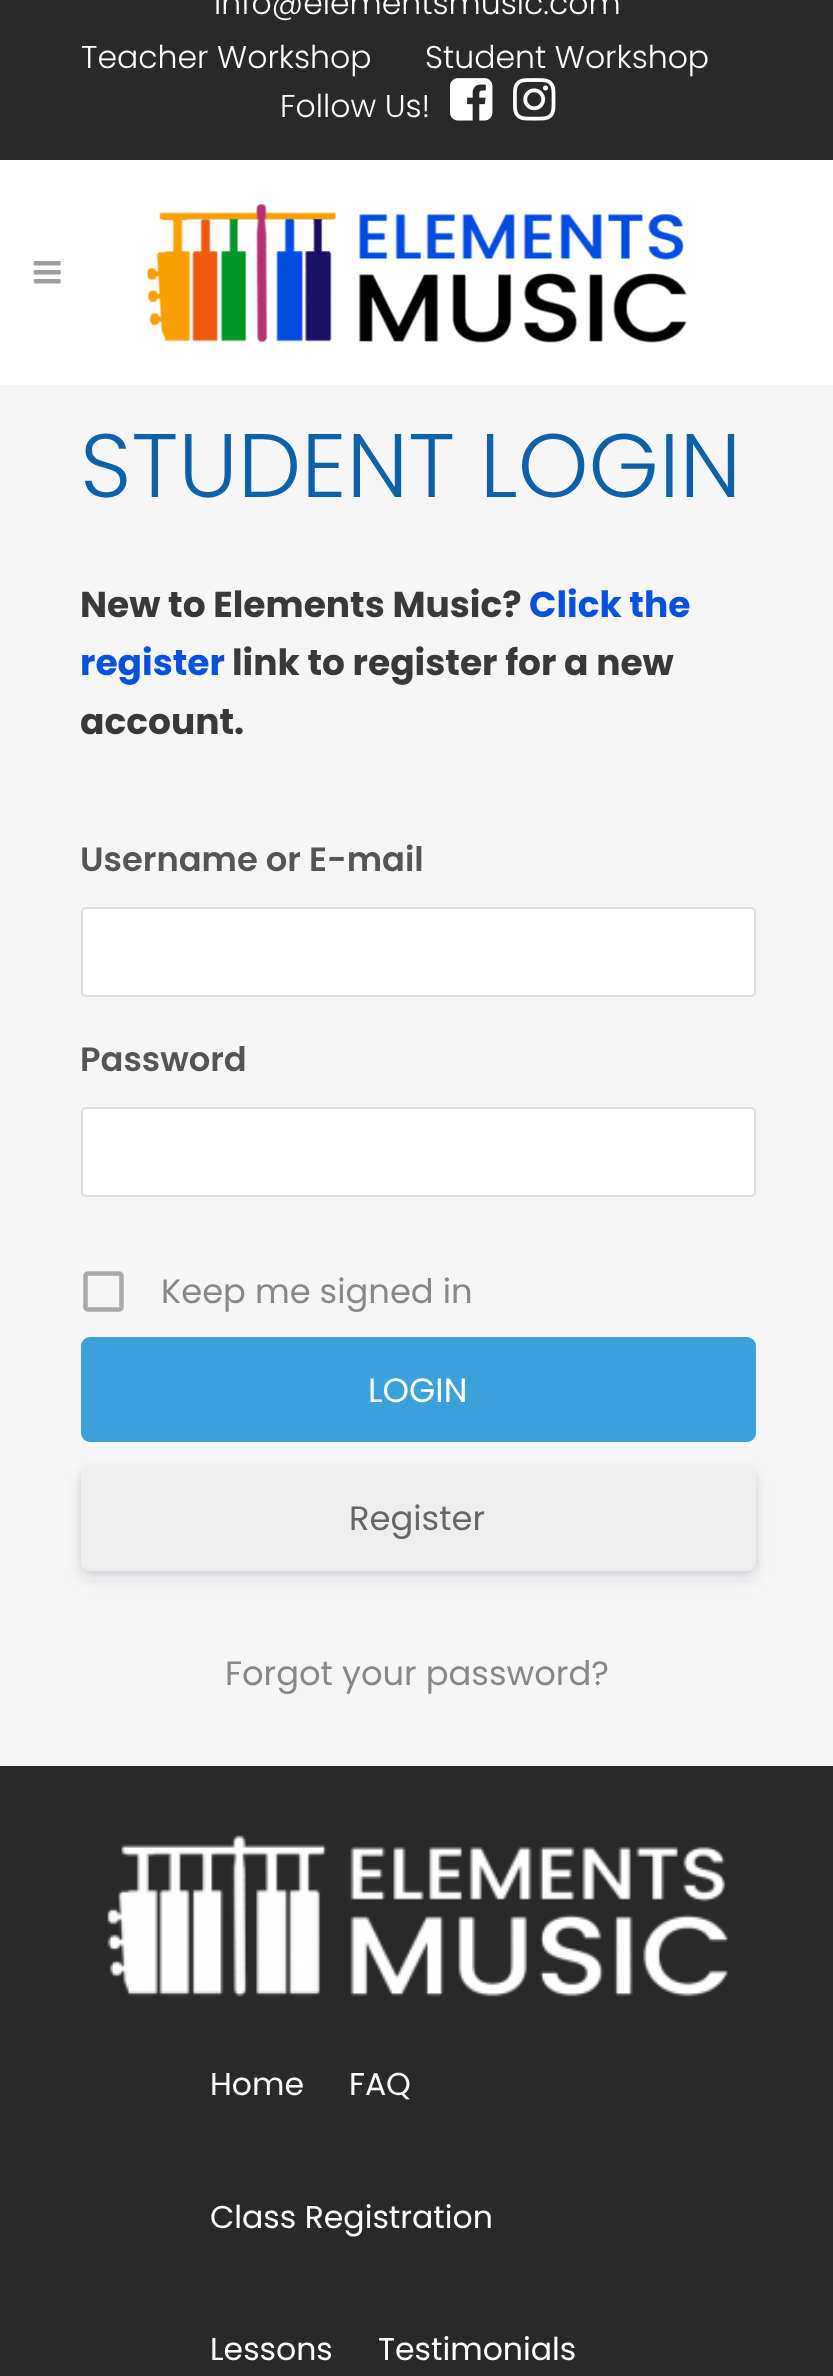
<?xml version="1.0" encoding="UTF-8"?>
<svg xmlns="http://www.w3.org/2000/svg" width="833" height="2376">
    <defs>
        <filter id="blur1" x="-50%" y="-200%" width="200%" height="500%"><feGaussianBlur stdDeviation="3.5"/></filter>
        <filter id="blur2" x="-50%" y="-200%" width="200%" height="500%"><feGaussianBlur stdDeviation="7"/></filter>
    </defs>
    <rect width="100%" height="100%" fill="#F6F6F6"/>
    <rect x="0" y="0" width="833" height="160" fill="#292929"/>
    <text x="214" y="14" font-family="Poppins" font-size="31.5" font-weight="300" fill="#FFFFFF">info@elementsmusic.com</text>
    <text x="81" y="68" font-family="Poppins" font-size="31.5" font-weight="300" fill="#FFFFFF">Teacher Workshop</text>
    <text x="425" y="68" font-family="Poppins" font-size="31.5" font-weight="300" fill="#FFFFFF">Student Workshop</text>
    <text x="280" y="117" font-family="Poppins" font-size="31.5" font-weight="300" fill="#FFFFFF">Follow Us!</text>
    <image x="450" y="78" width="43" height="43" href="img_01.png"/>
    <image x="513" y="78" width="43" height="43" href="img_02.png"/>
    <rect x="0" y="160" width="833" height="225" fill="#FFFFFF"/>
    <image x="33" y="261" width="28" height="23" href="img_03.png"/>
    <image x="147" y="204" width="540" height="139" href="img_04.png"/>
    <text x="80" y="497" font-family="Poppins" font-size="90" font-weight="300" fill="#0D61A8">STUDENT LOGIN</text>
    <text x="80" y="617" font-family="Poppins" font-size="36" font-weight="700" fill="#393939">New to Elements Music?</text>
    <text x="529" y="617" font-family="Poppins" font-size="36" font-weight="700" fill="#0652DD">Click the</text>
    <text x="80" y="675" font-family="Poppins" font-size="36" font-weight="700" fill="#0652DD">register</text>
    <text x="232" y="675" font-family="Poppins" font-size="36" font-weight="700" fill="#393939">link to register for a new</text>
    <text x="80" y="734" font-family="Poppins" font-size="36" font-weight="700" fill="#393939">account.</text>
    <text x="80" y="871" font-family="Poppins" font-size="33.75" font-weight="600" fill="#555555">Username or E-mail</text>
    <rect x="82" y="908" width="673" height="88" rx="4" fill="#FFFFFF" stroke="#DDDDDD" stroke-width="2"/>
    <text x="80" y="1071" font-family="Poppins" font-size="33.75" font-weight="600" fill="#555555">Password</text>
    <rect x="82" y="1108" width="673" height="88" rx="4" fill="#FFFFFF" stroke="#DDDDDD" stroke-width="2"/>
    <image x="83" y="1271" width="41" height="41" href="img_05.png"/>
    <text x="161" y="1303" font-family="Poppins" font-size="33.75" fill="#888888">Keep me signed in</text>
    <rect x="81" y="1337" width="675" height="105" rx="9" fill="#3BA1DA"/>
    <text x="368" y="1402" font-family="Poppins" font-size="33.75" fill="#FFFFFF">LOGIN</text>
    <rect x="81" y="1467" width="675" height="106" rx="9" fill="#000000" fill-opacity="0.08" filter="url(#blur1)"/>
    <rect x="81" y="1474" width="675" height="106" rx="9" fill="#32325D" fill-opacity="0.11" filter="url(#blur2)"/>
    <rect x="81" y="1465" width="675" height="106" rx="9" fill="#EEEEEE"/>
    <text x="349" y="1530" font-family="Poppins" font-size="33.75" fill="#666666">Register</text>
    <text x="225" y="1685" font-family="Poppins" font-size="33.75" fill="#888888">Forgot your password?</text>
    <rect x="0" y="1766" width="833" height="610" fill="#292929"/>
    <image x="107" y="1835" width="622" height="162" href="img_06.png"/>
    <text x="210" y="2095" font-family="Poppins" font-size="31.5" fill="#FFFFFF">Home</text>
    <text x="349" y="2095" font-family="Poppins" font-size="31.5" fill="#FFFFFF">FAQ</text>
    <text x="210" y="2228" font-family="Poppins" font-size="31.5" fill="#FFFFFF">Class Registration</text>
    <text x="210" y="2360" font-family="Poppins" font-size="31.5" fill="#FFFFFF">Lessons</text>
    <text x="378" y="2360" font-family="Poppins" font-size="31.5" fill="#FFFFFF">Testimonials</text>
</svg>
